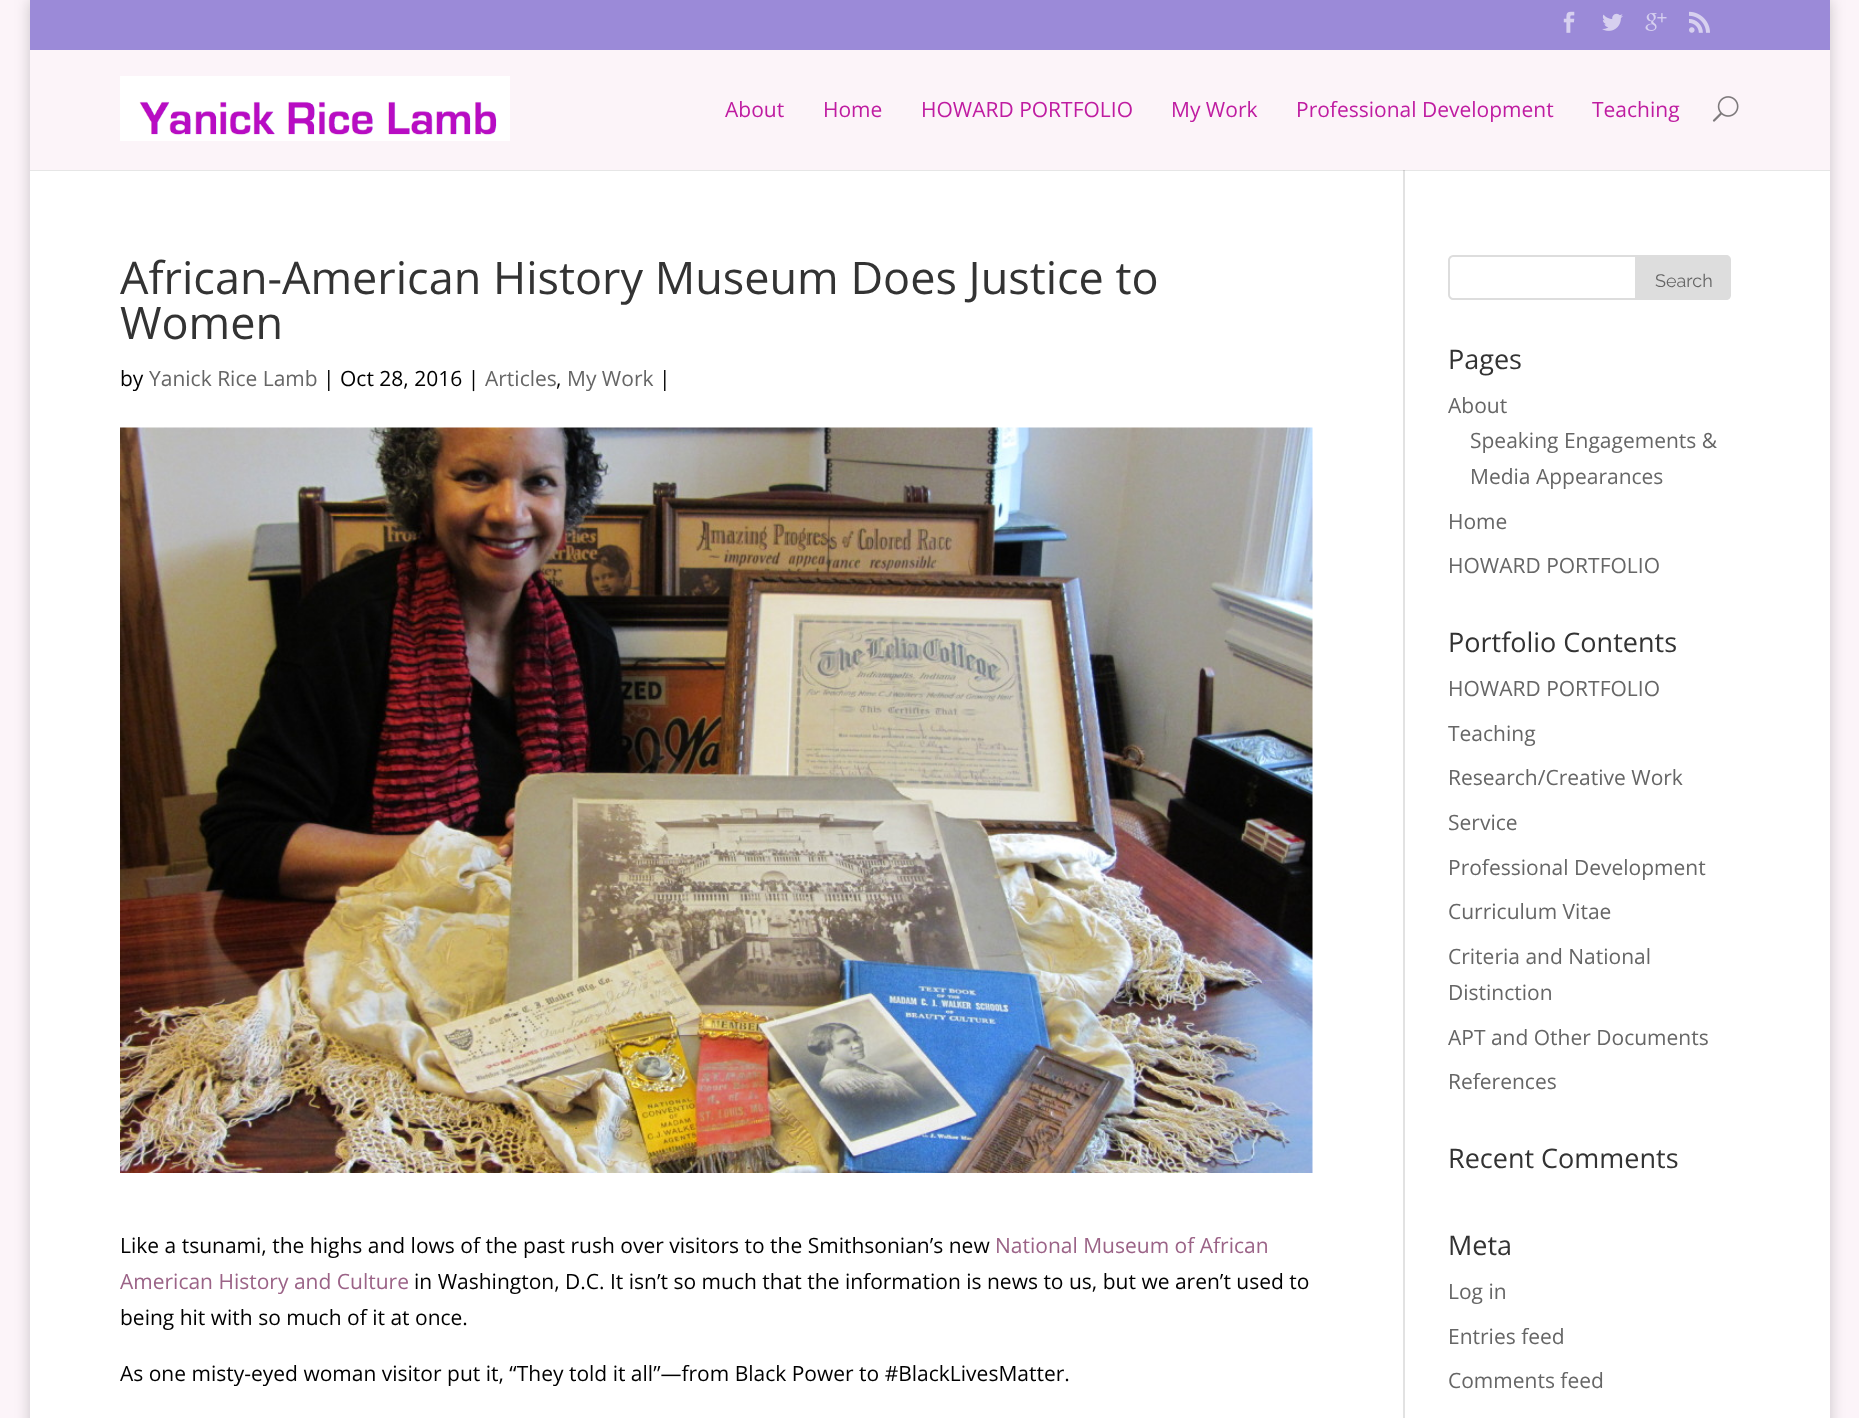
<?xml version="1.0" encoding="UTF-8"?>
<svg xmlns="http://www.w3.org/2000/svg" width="1859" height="1418">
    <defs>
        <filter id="blur1" x="-50%" y="-200%" width="200%" height="500%"><feGaussianBlur stdDeviation="7.5"/></filter>
    </defs>
    <rect width="100%" height="100%" fill="#FCF4F9"/>
    <rect x="30" y="0" width="1800" height="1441" fill="#000000" fill-opacity="0.2" filter="url(#blur1)"/>
    <rect x="30" y="0" width="1800" height="50" fill="#9B8AD8"/>
    <image x="1563" y="11" width="12" height="22" href="img_01.png"/>
    <image x="1602" y="13" width="21" height="18" href="img_02.png"/>
    <image x="1645" y="13" width="22" height="18" href="img_03.png"/>
    <image x="1689" y="11" width="21" height="22" href="img_04.png"/>
    <rect x="30" y="171" width="1800" height="1247" fill="#FFFFFF"/>
    <rect x="30" y="170" width="1800" height="1" fill="#E6E6E6"/>
    <rect x="1403" y="168" width="2" height="1250" fill="#E2E2E2"/>
    <rect x="30" y="50" width="1800" height="120" fill="#FCF4F9"/>
    <image x="120" y="76" width="390" height="65" href="img_05.png"/>
    <text x="725" y="117" font-family="Open Sans" font-size="21" fill="#BF1CA1">About</text>
    <text x="823" y="117" font-family="Open Sans" font-size="21" fill="#BF1CA1">Home</text>
    <text x="921" y="117" font-family="Open Sans" font-size="21" fill="#BF1CA1">HOWARD PORTFOLIO</text>
    <text x="1171" y="117" font-family="Open Sans" font-size="21" fill="#BF1CA1">My Work</text>
    <text x="1296" y="117" font-family="Open Sans" font-size="21" fill="#BF1CA1">Professional Development</text>
    <text x="1592" y="117" font-family="Open Sans" font-size="21" fill="#BF1CA1">Teaching</text>
    <image x="1712" y="96" width="27" height="26" href="img_06.png"/>
    <rect x="1403" y="170" width="2" height="1" fill="#CBCBCB"/>
    <text font-family="Open Sans" font-size="45" fill="#333333">
        <tspan x="120" y="294">African-American History Museum Does Justice to</tspan>
        <tspan x="120" y="339">Women</tspan>
    </text>
    <text x="120" y="386" font-family="Open Sans" font-size="21" fill="#000000">by</text>
    <text x="149" y="386" font-family="Open Sans" font-size="21" fill="#666666">Yanick Rice Lamb</text>
    <text x="323" y="386" font-family="Open Sans" font-size="21" fill="#000000">| Oct 28, 2016 |</text>
    <text x="485" y="386" font-family="Open Sans" font-size="21" fill="#666666">Articles</text>
    <text x="556" y="386" font-family="Open Sans" font-size="21" fill="#000000">,</text>
    <text x="567" y="386" font-family="Open Sans" font-size="21" fill="#666666">My Work</text>
    <text x="659" y="386" font-family="Open Sans" font-size="21" fill="#000000">|</text>
    <image x="120" y="427" width="1193" height="746" href="img_07.png"/>
    <text x="120" y="1253" font-family="Open Sans" font-size="21" fill="#000000">Like a tsunami, the highs and lows of the past rush over visitors to the Smithsonian’s new</text>
    <text x="995" y="1253" font-family="Open Sans" font-size="21" fill="#9B6387">National Museum of African</text>
    <text x="120" y="1289" font-family="Open Sans" font-size="21" fill="#9B6387">American History and Culture</text>
    <text x="414" y="1289" font-family="Open Sans" font-size="21" fill="#000000">in Washington, D.C. It isn’t so much that the information is news to us, but we aren’t used to</text>
    <text x="120" y="1325" font-family="Open Sans" font-size="21" fill="#000000">being hit with so much of it at once.</text>
    <text x="120" y="1381" font-family="Open Sans" font-size="21" fill="#000000">As one misty-eyed woman visitor put it, “They told it all”—from Black Power to #BlackLivesMatter.</text>
    <path d="M 1453 256 H 1636 V 299 H 1453 C 1451 299 1449 297 1449 295 V 260 C 1449 258 1451 256 1453 256 Z" fill="none" stroke="#DDDDDD" stroke-width="2"/>
    <path d="M 1637 255 H 1726 C 1729 255 1731 257 1731 260 V 295 C 1731 298 1729 300 1726 300 H 1637 Z" fill="#DDDDDD"/>
    <text x="1655" y="287" font-family="Raleway" font-size="18" fill="#666666">Search</text>
    <text x="1448" y="369" font-family="Open Sans" font-size="27" fill="#333333">Pages</text>
    <text x="1448" y="413" font-family="Open Sans" font-size="21" fill="#666666">About</text>
    <text font-family="Open Sans" font-size="21" fill="#666666">
        <tspan x="1470" y="448">Speaking Engagements &amp;</tspan>
        <tspan x="1470" y="484">Media Appearances</tspan>
    </text>
    <text x="1448" y="529" font-family="Open Sans" font-size="21" fill="#666666">Home</text>
    <text x="1448" y="573" font-family="Open Sans" font-size="21" fill="#666666">HOWARD PORTFOLIO</text>
    <text x="1448" y="652" font-family="Open Sans" font-size="27" fill="#333333">Portfolio Contents</text>
    <text x="1448" y="696" font-family="Open Sans" font-size="21" fill="#666666">HOWARD PORTFOLIO</text>
    <text x="1448" y="741" font-family="Open Sans" font-size="21" fill="#666666">Teaching</text>
    <text x="1448" y="785" font-family="Open Sans" font-size="21" fill="#666666">Research/Creative Work</text>
    <text x="1448" y="830" font-family="Open Sans" font-size="21" fill="#666666">Service</text>
    <text x="1448" y="875" font-family="Open Sans" font-size="21" fill="#666666">Professional Development</text>
    <text x="1448" y="919" font-family="Open Sans" font-size="21" fill="#666666">Curriculum Vitae</text>
    <text font-family="Open Sans" font-size="21" fill="#666666">
        <tspan x="1448" y="964">Criteria and National</tspan>
        <tspan x="1448" y="1000">Distinction</tspan>
    </text>
    <text x="1448" y="1045" font-family="Open Sans" font-size="21" fill="#666666">APT and Other Documents</text>
    <text x="1448" y="1089" font-family="Open Sans" font-size="21" fill="#666666">References</text>
    <text x="1448" y="1168" font-family="Open Sans" font-size="27" fill="#333333">Recent Comments</text>
    <text x="1448" y="1255" font-family="Open Sans" font-size="27" fill="#333333">Meta</text>
    <text x="1448" y="1299" font-family="Open Sans" font-size="21" fill="#666666">Log in</text>
    <text x="1448" y="1344" font-family="Open Sans" font-size="21" fill="#666666">Entries feed</text>
    <text x="1448" y="1388" font-family="Open Sans" font-size="21" fill="#666666">Comments feed</text>
</svg>
